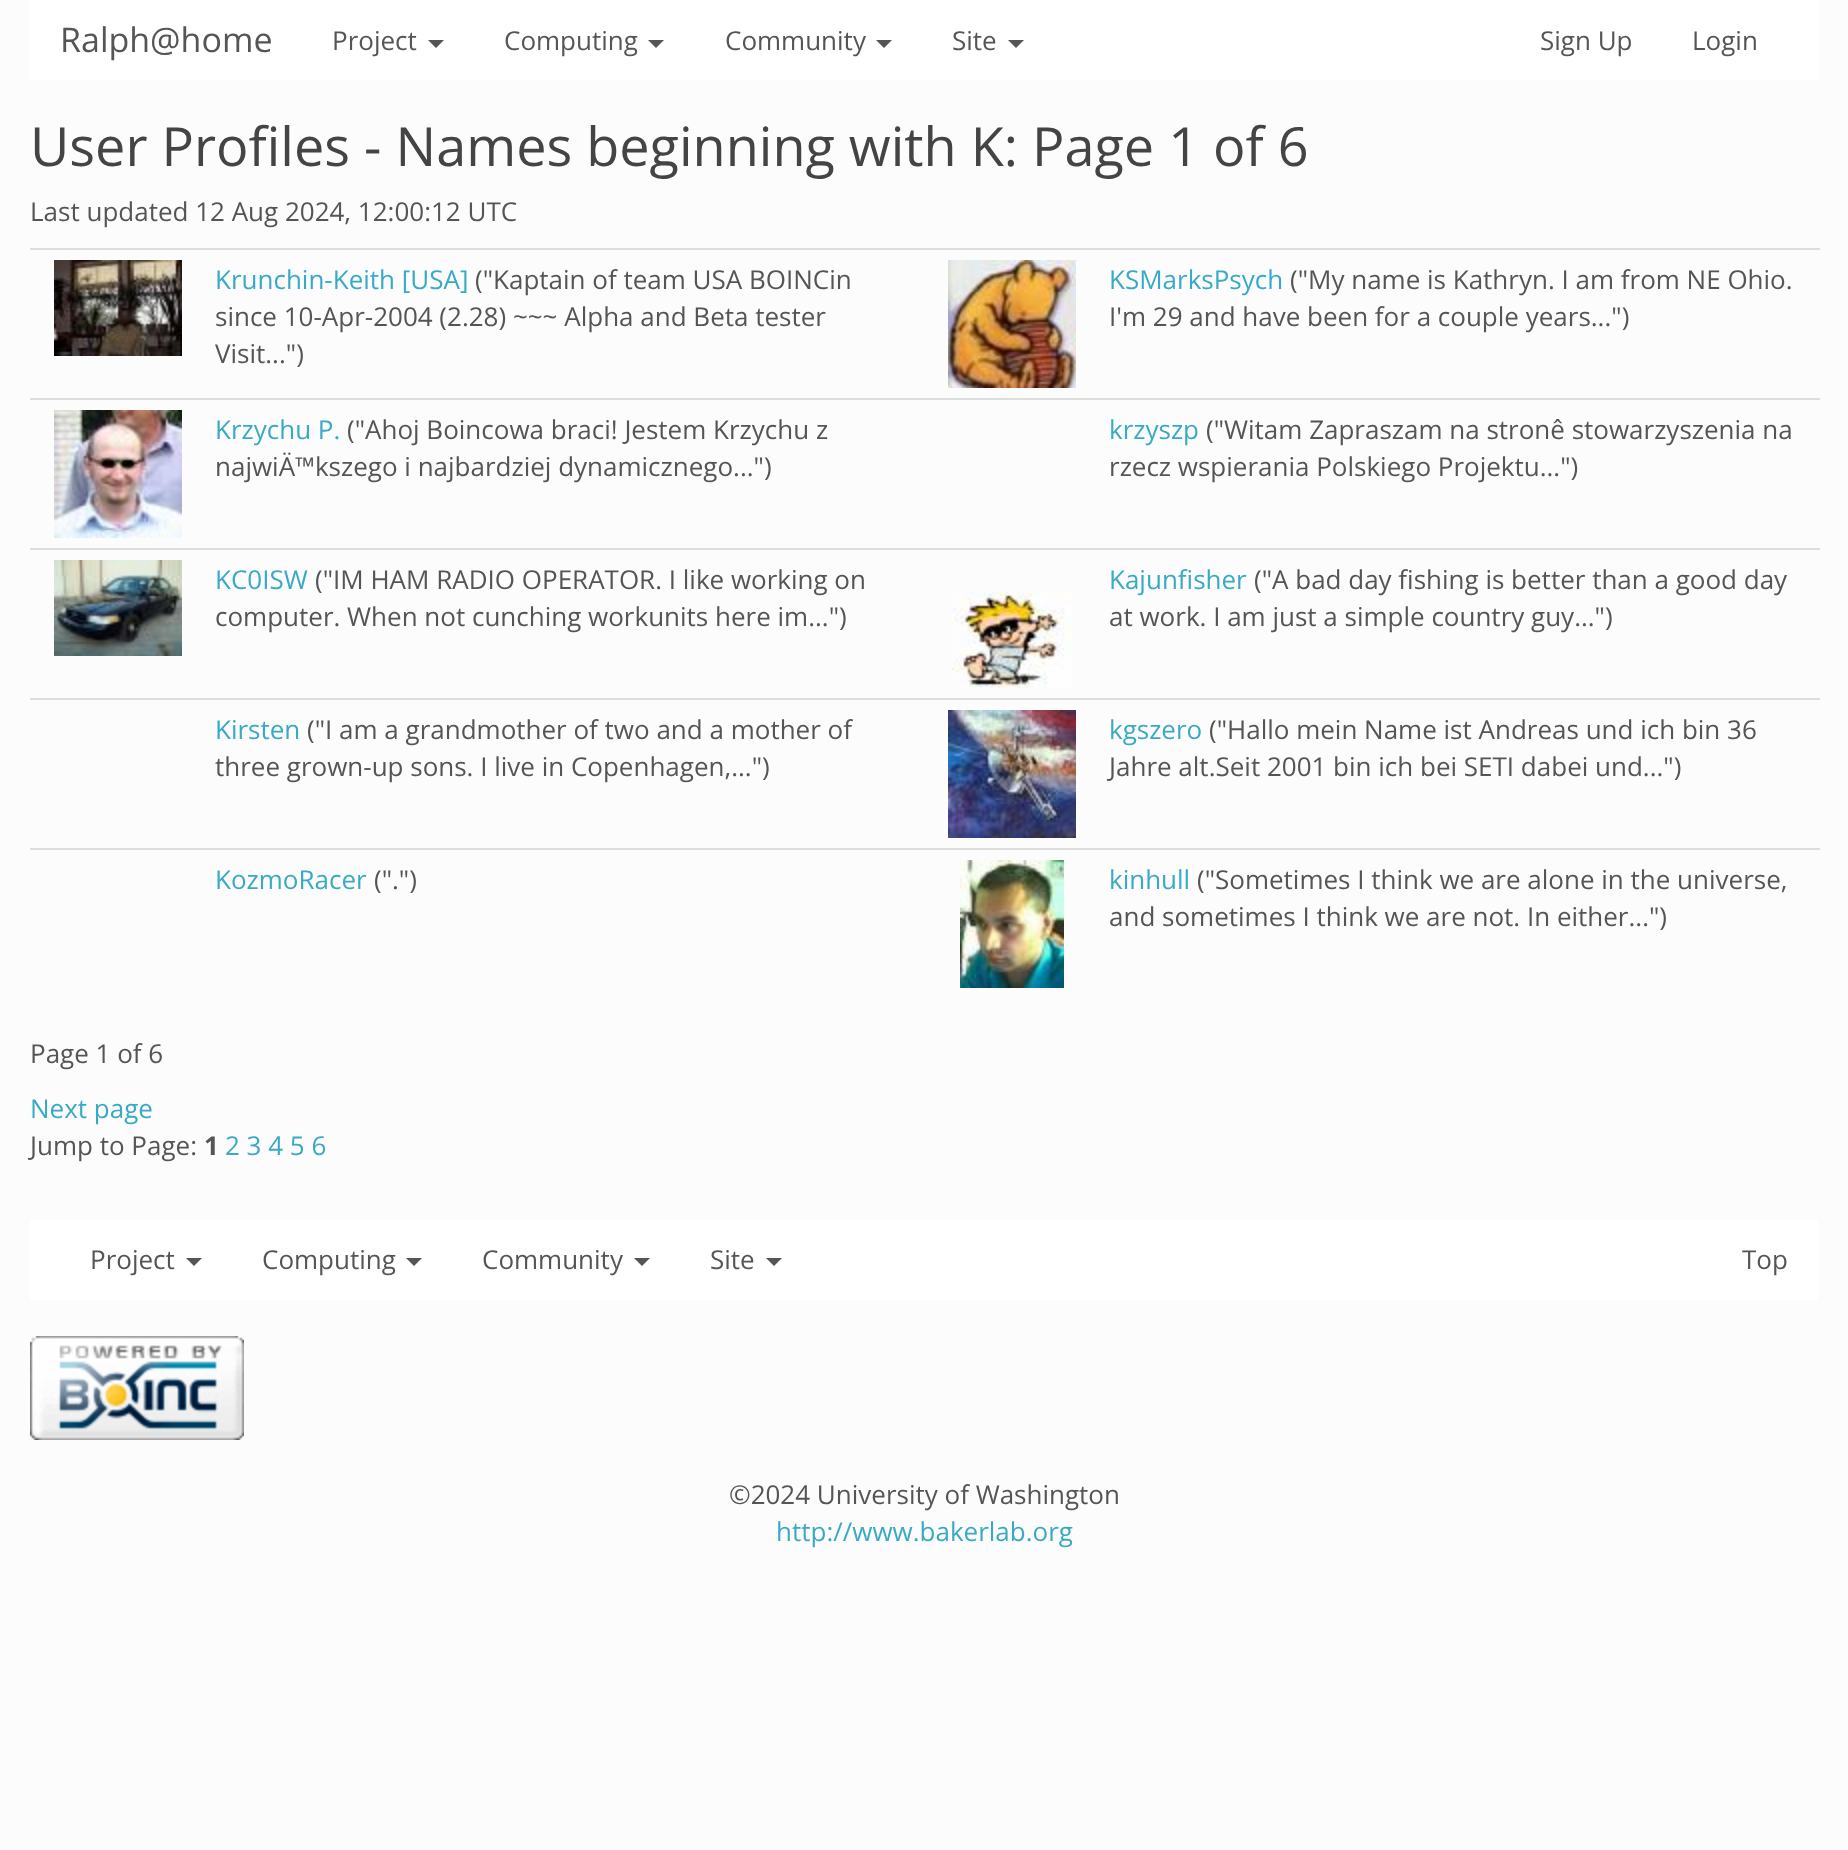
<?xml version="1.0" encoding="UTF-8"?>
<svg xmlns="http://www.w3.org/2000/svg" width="1848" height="1850">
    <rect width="100%" height="100%" fill="#FCFCFC"/>
    <rect x="30" y="0" width="1788" height="80" fill="#FFFFFF"/>
    <text x="60" y="52" font-family="Open Sans" font-size="34" fill="#555555">Ralph@home</text>
    <text x="332" y="50" font-family="Open Sans" font-size="26" fill="#555555">Project</text>
    <path d="M 428 40 H 444 L 436 48 Z" fill="#555555"/>
    <text x="504" y="50" font-family="Open Sans" font-size="26" fill="#555555">Computing</text>
    <path d="M 648 40 H 664 L 656 48 Z" fill="#555555"/>
    <text x="725" y="50" font-family="Open Sans" font-size="26" fill="#555555">Community</text>
    <path d="M 876 40 H 892 L 884 48 Z" fill="#555555"/>
    <text x="952" y="50" font-family="Open Sans" font-size="26" fill="#555555">Site</text>
    <path d="M 1008 40 H 1024 L 1016 48 Z" fill="#555555"/>
    <text x="1540" y="50" font-family="Open Sans" font-size="26" fill="#555555">Sign Up</text>
    <text x="1692" y="50" font-family="Open Sans" font-size="26" fill="#555555">Login</text>
    <text x="30" y="166" font-family="Open Sans" font-size="54" fill="#444444">User Profiles - Names beginning with K: Page 1 of 6</text>
    <text x="30" y="221" font-family="Open Sans" font-size="26" fill="#555555">Last updated 12 Aug 2024, 12:00:12 UTC</text>
    <image x="54" y="260" width="128" height="96" href="img_01.png"/>
    <text x="215" y="289" font-family="Open Sans" font-size="26" fill="#39AAC6">Krunchin-Keith [USA]</text>
    <text x="475" y="289" font-family="Open Sans" font-size="26" fill="#555555">("Kaptain of team USA BOINCin</text>
    <text font-family="Open Sans" font-size="26" fill="#555555">
        <tspan x="215" y="326">since 10-Apr-2004 (2.28) ~~~ Alpha and Beta tester</tspan>
        <tspan x="215" y="363">Visit...")</tspan>
    </text>
    <image x="948" y="260" width="128" height="128" href="img_02.png"/>
    <rect x="30" y="248" width="1790" height="2" fill="#DDDDDD"/>
    <text x="1109" y="289" font-family="Open Sans" font-size="26" fill="#39AAC6">KSMarksPsych</text>
    <text x="1290" y="289" font-family="Open Sans" font-size="26" fill="#555555">("My name is Kathryn. I am from NE Ohio.</text>
    <text x="1109" y="326" font-family="Open Sans" font-size="26" fill="#555555">I'm 29 and have been for a couple years...")</text>
    <image x="54" y="410" width="128" height="128" href="img_03.png"/>
    <text x="215" y="439" font-family="Open Sans" font-size="26" fill="#39AAC6">Krzychu P.</text>
    <text x="347" y="439" font-family="Open Sans" font-size="26" fill="#555555">("Ahoj Boincowa braci! Jestem Krzychu z</text>
    <text x="215" y="476" font-family="Open Sans" font-size="26" fill="#555555">najwiÄ™kszego i najbardziej dynamicznego...")</text>
    <rect x="30" y="398" width="1790" height="2" fill="#DDDDDD"/>
    <text x="1109" y="439" font-family="Open Sans" font-size="26" fill="#39AAC6">krzyszp</text>
    <text x="1206" y="439" font-family="Open Sans" font-size="26" fill="#555555">("Witam Zapraszam na stronê stowarzyszenia na</text>
    <text x="1109" y="476" font-family="Open Sans" font-size="26" fill="#555555">rzecz wspierania Polskiego Projektu...")</text>
    <image x="54" y="560" width="128" height="96" href="img_04.png"/>
    <text x="215" y="589" font-family="Open Sans" font-size="26" fill="#39AAC6">KC0ISW</text>
    <text x="315" y="589" font-family="Open Sans" font-size="26" fill="#555555">("IM HAM RADIO OPERATOR. I like working on</text>
    <text x="215" y="626" font-family="Open Sans" font-size="26" fill="#555555">computer. When not cunching workunits here im...")</text>
    <image x="952" y="591" width="120" height="97" href="img_05.png"/>
    <rect x="30" y="548" width="1790" height="2" fill="#DDDDDD"/>
    <text x="1109" y="589" font-family="Open Sans" font-size="26" fill="#39AAC6">Kajunfisher</text>
    <text x="1254" y="589" font-family="Open Sans" font-size="26" fill="#555555">("A bad day fishing is better than a good day</text>
    <text x="1109" y="626" font-family="Open Sans" font-size="26" fill="#555555">at work. I am just a simple country guy...")</text>
    <text x="215" y="739" font-family="Open Sans" font-size="26" fill="#39AAC6">Kirsten</text>
    <text x="307" y="739" font-family="Open Sans" font-size="26" fill="#555555">("I am a grandmother of two and a mother of</text>
    <text x="215" y="776" font-family="Open Sans" font-size="26" fill="#555555">three grown-up sons. I live in Copenhagen,...")</text>
    <image x="948" y="710" width="128" height="128" href="img_06.png"/>
    <rect x="30" y="698" width="1790" height="2" fill="#DDDDDD"/>
    <text x="1109" y="739" font-family="Open Sans" font-size="26" fill="#39AAC6">kgszero</text>
    <text x="1209" y="739" font-family="Open Sans" font-size="26" fill="#555555">("Hallo mein Name ist Andreas und ich bin 36</text>
    <text x="1109" y="776" font-family="Open Sans" font-size="26" fill="#555555">Jahre alt.Seit 2001 bin ich bei SETI dabei und...")</text>
    <text x="215" y="889" font-family="Open Sans" font-size="26" fill="#39AAC6">KozmoRacer</text>
    <text x="374" y="889" font-family="Open Sans" font-size="26" fill="#555555">(".")</text>
    <image x="960" y="860" width="104" height="128" href="img_07.png"/>
    <rect x="30" y="848" width="1790" height="2" fill="#DDDDDD"/>
    <text x="1109" y="889" font-family="Open Sans" font-size="26" fill="#39AAC6">kinhull</text>
    <text x="1197" y="889" font-family="Open Sans" font-size="26" fill="#555555">("Sometimes I think we are alone in the universe,</text>
    <text x="1109" y="926" font-family="Open Sans" font-size="26" fill="#555555">and sometimes I think we are not. In either...")</text>
    <text x="30" y="1063" font-family="Open Sans" font-size="26" fill="#555555">Page 1 of 6</text>
    <text x="30" y="1118" font-family="Open Sans" font-size="26" fill="#39AAC6">Next page</text>
    <text x="30" y="1155" font-family="Open Sans" font-size="26" fill="#555555">Jump to Page:</text>
    <text x="204" y="1155" font-family="Open Sans" font-size="26" font-weight="700" fill="#555555">1</text>
    <text x="225" y="1155" font-family="Open Sans" font-size="26" fill="#39AAC6">2 3 4 5 6</text>
    <rect x="30" y="1220" width="1788" height="80" fill="#FFFFFF"/>
    <text x="90" y="1269" font-family="Open Sans" font-size="26" fill="#555555">Project</text>
    <path d="M 186 1258 H 202 L 194 1266 Z" fill="#555555"/>
    <text x="262" y="1269" font-family="Open Sans" font-size="26" fill="#555555">Computing</text>
    <path d="M 406 1258 H 422 L 414 1266 Z" fill="#555555"/>
    <text x="482" y="1269" font-family="Open Sans" font-size="26" fill="#555555">Community</text>
    <path d="M 634 1258 H 650 L 642 1266 Z" fill="#555555"/>
    <text x="710" y="1269" font-family="Open Sans" font-size="26" fill="#555555">Site</text>
    <path d="M 766 1258 H 782 L 774 1266 Z" fill="#555555"/>
    <text x="1742" y="1269" font-family="Open Sans" font-size="26" fill="#555555">Top</text>
    <image x="30" y="1336" width="214" height="104" href="img_08.png"/>
    <text x="729" y="1504" font-family="Open Sans" font-size="26" fill="#555555">©2024 University of Washington</text>
    <text x="776" y="1541" font-family="Open Sans" font-size="26" fill="#39AAC6">http://www.bakerlab.org</text>
</svg>
